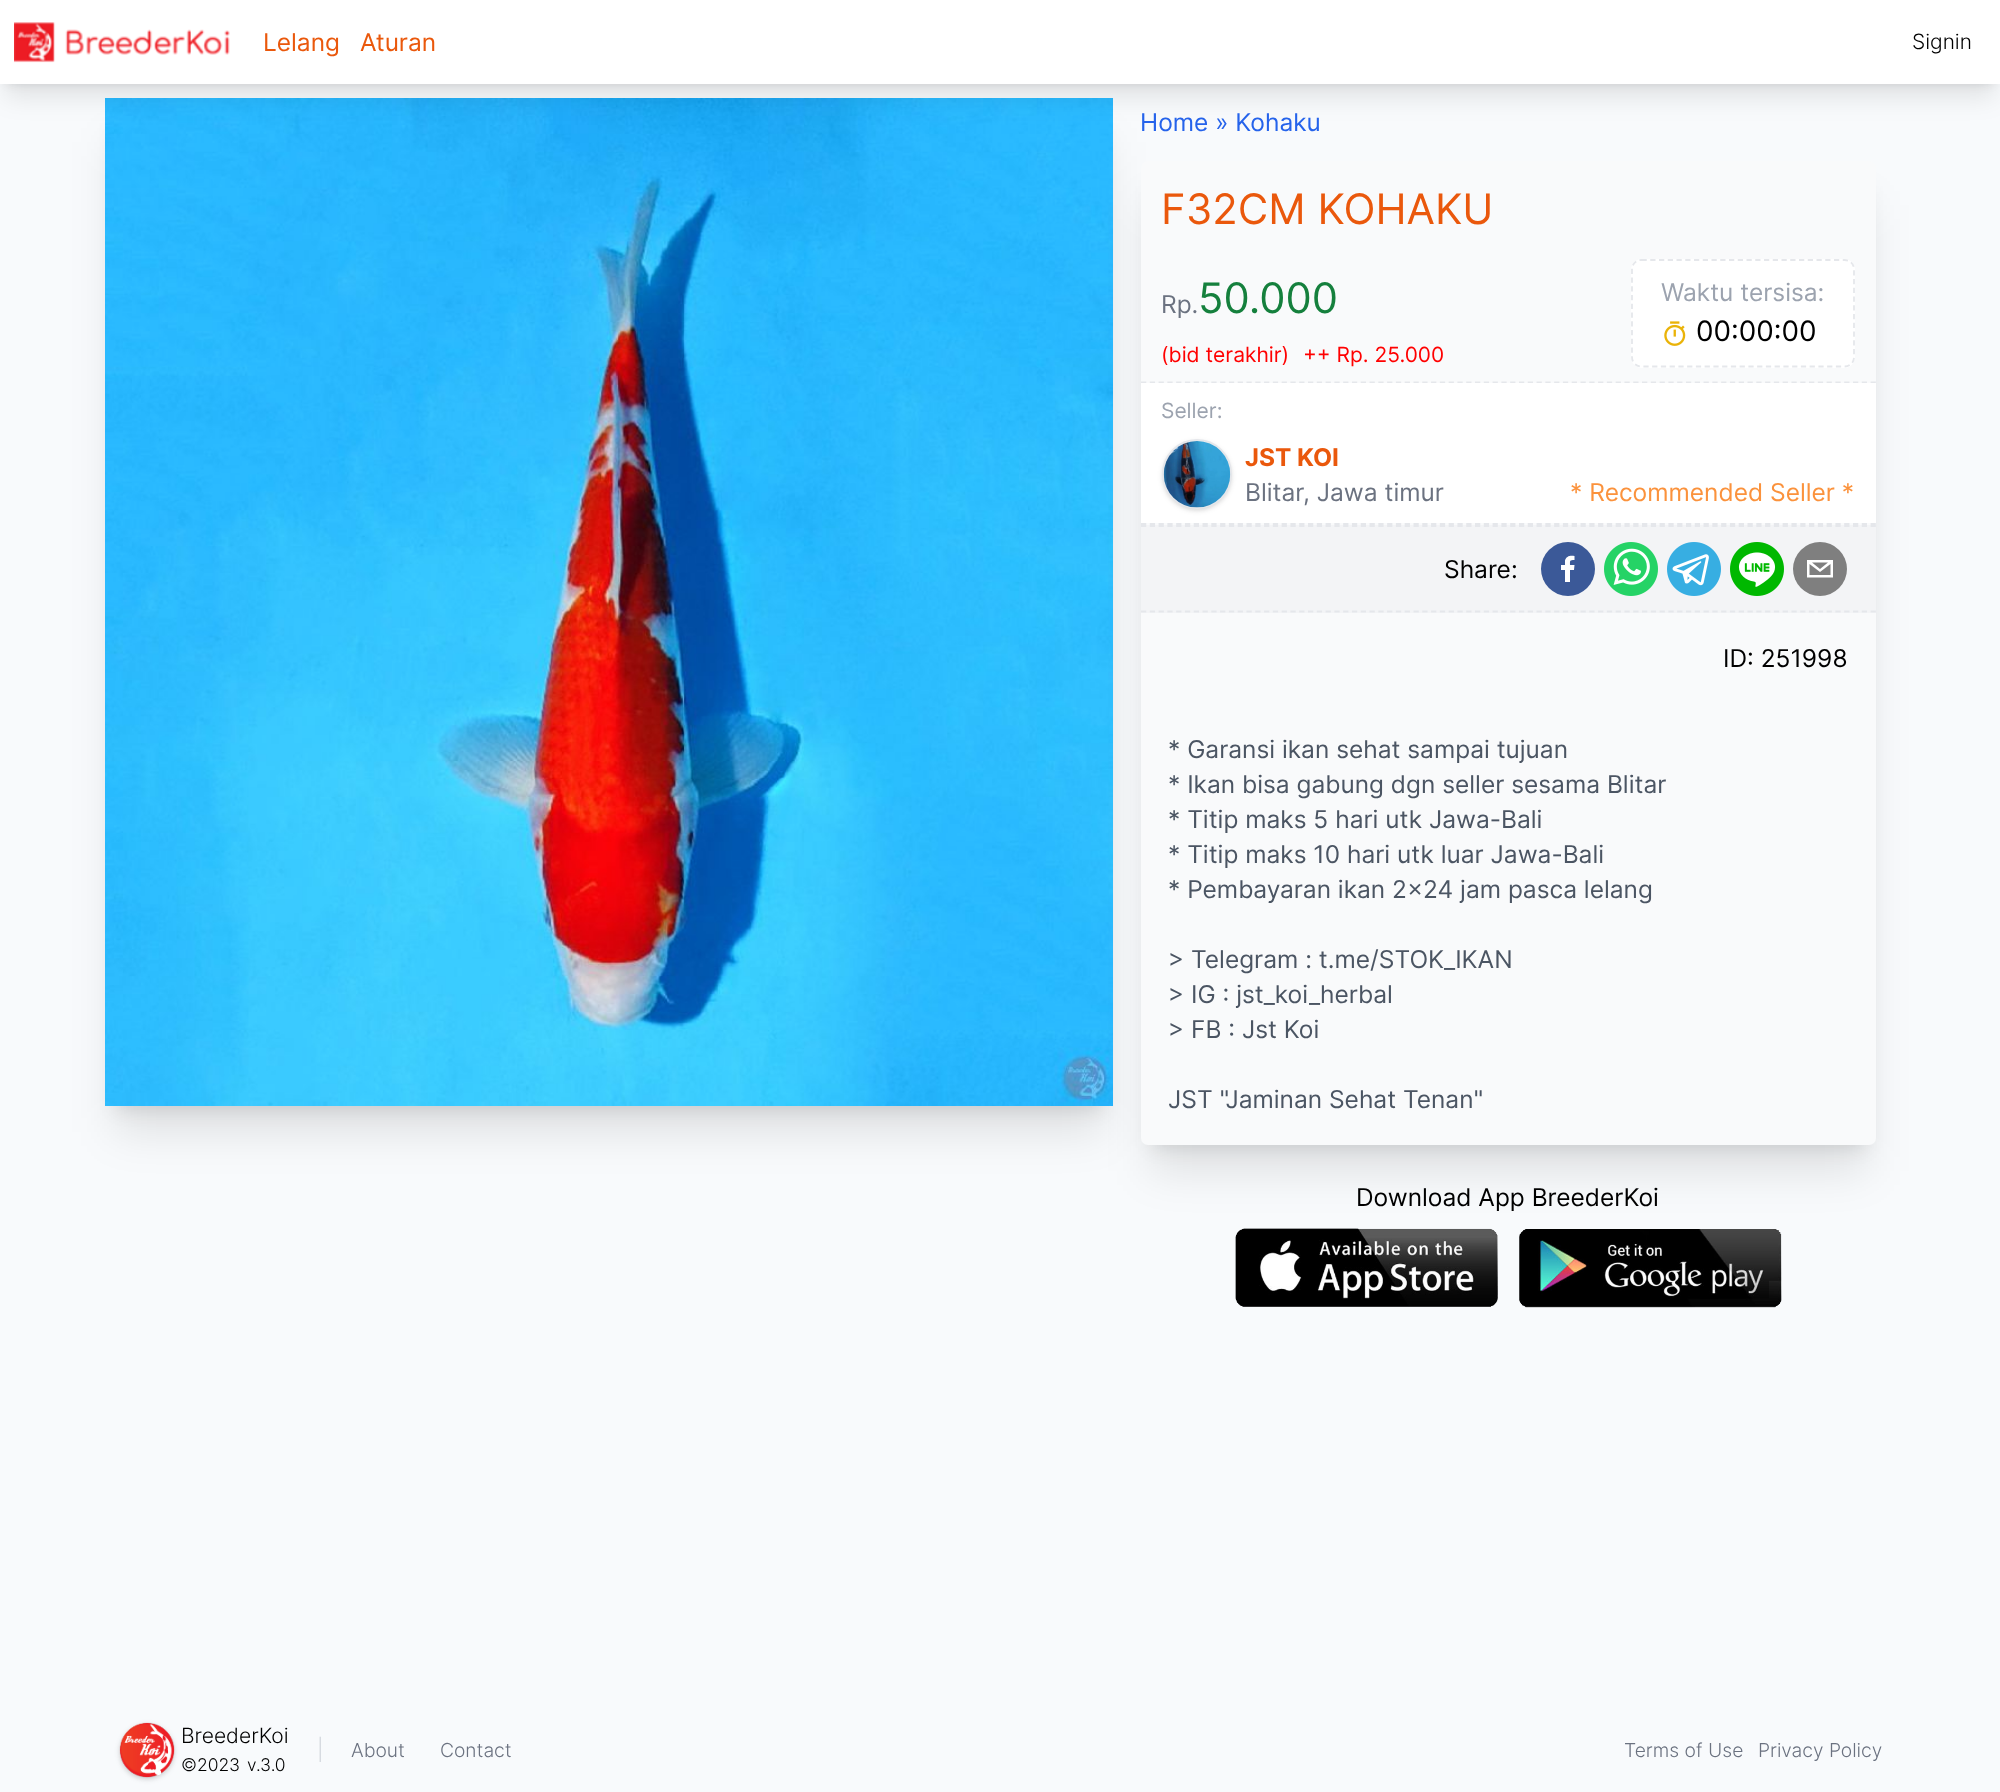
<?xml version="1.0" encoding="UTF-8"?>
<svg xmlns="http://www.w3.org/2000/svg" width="2000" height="1792">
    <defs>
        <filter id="blur1" x="-50%" y="-200%" width="200%" height="500%"><feGaussianBlur stdDeviation="9"/></filter>
        <filter id="blur2" x="-50%" y="-200%" width="200%" height="500%"><feGaussianBlur stdDeviation="22"/></filter>
        <filter id="blur3" x="-50%" y="-200%" width="200%" height="500%"><feGaussianBlur stdDeviation="5"/></filter>
        <filter id="blur4" x="-50%" y="-200%" width="200%" height="500%"><feGaussianBlur stdDeviation="13"/></filter>
        <filter id="blur5" x="-50%" y="-200%" width="200%" height="500%"><feGaussianBlur stdDeviation="2"/></filter>
        <filter id="blur6" x="-50%" y="-200%" width="200%" height="500%"><feGaussianBlur stdDeviation="2.5"/></filter>
    </defs>
    <rect width="100%" height="100%" fill="#F8FAFC"/>
    <rect x="116" y="123" width="987" height="987" fill="#000000" fill-opacity="0.1" filter="url(#blur1)"/>
    <rect x="114" y="142" width="990" height="990" fill="#000000" fill-opacity="0.1" filter="url(#blur2)"/>
    <image x="105" y="98" width="1008" height="1008" href="img_02.png"/>
    <rect x="7" y="14" width="1986" height="70" fill="#000000" fill-opacity="0.1" filter="url(#blur3)"/>
    <rect x="5" y="23" width="1990" height="73" fill="#000000" fill-opacity="0.1" filter="url(#blur4)"/>
    <rect x="0" y="0" width="2000" height="84" fill="#FFFFFF"/>
    <image x="14" y="22" width="216" height="41" href="img_01.png"/>
    <text x="263" y="51" font-family="Inter" font-size="24.5" fill="#EA580C">Lelang</text>
    <text x="360" y="51" font-family="Inter" font-size="24.5" fill="#EA580C">Aturan</text>
    <text x="1912" y="49" font-family="Inter" font-size="21" font-weight="300" fill="#000000">Signin</text>
    <text x="1140" y="131" font-family="Inter" font-size="24.5" fill="#2563EB">Home » Kohaku</text>
    <rect x="1152" y="186" width="714" height="962" fill="#000000" fill-opacity="0.1" filter="url(#blur1)"/>
    <rect x="1150" y="205" width="717" height="966" fill="#000000" fill-opacity="0.1" filter="url(#blur2)"/>
    <rect x="1141" y="161" width="735" height="984" rx="7" fill="#F9FAFB"/>
    <text x="1161" y="224" font-family="Inter" font-size="42" fill="#EA580C">F32CM KOHAKU</text>
    <text x="1161" y="313" font-family="Inter" font-size="24.5" fill="#6B7280">Rp.</text>
    <text x="1198" y="313" font-family="Inter" font-size="42" fill="#15803D">50.000</text>
    <text x="1161" y="362" font-family="Inter" font-size="21" fill="#FF0000">(bid terakhir)</text>
    <text x="1303" y="362" font-family="Inter" font-size="21" fill="#FF0000">++ Rp. 25.000</text>
    <rect x="1631" y="259" width="224" height="109" rx="11" fill="#FFFFFF"/>
    <path d="M 1641.5 260 H 1844.5 C 1850 260 1854 264 1854 269.5 V 357 C 1854 362.5 1850 366.5 1844.5 366.5 H 1641.5 C 1636 366.5 1632 362.5 1632 357 V 269.5 C 1632 264 1636 260 1641.5 260 Z" fill="none" stroke="#E5E7EB" stroke-width="1.8" stroke-dasharray="5.25 3.5"/>
    <text x="1661" y="301" font-family="Inter" font-size="24.5" fill="#9CA3AF">Waktu tersisa:</text>
    <image x="1664" y="321" width="22" height="25" href="img_03.png"/>
    <text x="1696" y="341" font-family="Inter" font-size="28" fill="#000000">00:00:00</text>
    <path d="M 1141 382.5 H 1876" fill="none" stroke="#E5E7EB" stroke-width="1.8" stroke-dasharray="5.25 3.54"/>
    <path d="M 1141 524 H 1876" fill="none" stroke="#E5E7EB" stroke-width="1.8" stroke-dasharray="5.25 3.54"/>
    <rect x="1141" y="383" width="735" height="140" fill="#FFFFFF"/>
    <text x="1161" y="418" font-family="Inter" font-size="21" fill="#9CA3AF">Seller:</text>
    <rect x="1164" y="443" width="66" height="66" rx="33" fill="#000000" fill-opacity="0.1" filter="url(#blur5)"/>
    <rect x="1162" y="441" width="70" height="70" rx="35" fill="#000000" fill-opacity="0.1" filter="url(#blur6)"/>
    <circle cx="1197" cy="474" r="34" fill="none" stroke="#E5E7EB" stroke-width="2"/>
    <image x="1163" y="441" width="68" height="67" href="img_04.png"/>
    <text x="1245" y="466" font-family="Inter" font-size="24.5" font-weight="700" fill="#EA580C">JST KOI</text>
    <text x="1245" y="501" font-family="Inter" font-size="24.5" fill="#6B7280">Blitar</text>
    <text x="1303" y="501" font-family="Inter" font-size="24.5" fill="#6B7280">, Jawa timur</text>
    <text x="1570" y="501" font-family="Inter" font-size="24.5" fill="#FB923C">* Recommended Seller *</text>
    <rect x="1141" y="525" width="735" height="88" fill="#F3F4F6"/>
    <path d="M 1141 526 H 1876" fill="none" stroke="#E5E7EB" stroke-width="1.8" stroke-dasharray="5.25 3.54"/>
    <path d="M 1141 611.5 H 1876" fill="none" stroke="#E5E7EB" stroke-width="1.8" stroke-dasharray="5.25 3.54"/>
    <text x="1444" y="578" font-family="Inter" font-size="24.5" fill="#000000">Share:</text>
    <circle cx="1568" cy="569" r="27" fill="#3B5998"/>
    <path d="M 1570 582 V 570 H 1574 L 1574.5 565 H 1570 C 1570 560.5 1569.5 560 1574.5 560 V 556 C 1570.5 555 1566 556 1565 560.5 V 565 H 1561 V 570 H 1565 V 582 Z" fill="#FFFFFF"/>
    <image x="1604" y="542" width="54" height="54" href="img_05.png"/>
    <image x="1667" y="542" width="54" height="54" href="img_06.png"/>
    <image x="1730" y="542" width="54" height="54" href="img_07.png"/>
    <circle cx="1820" cy="569" r="27" fill="#7F7F7F"/>
    <path d="M 1807 560 V 577.5 H 1833 V 560 Z M 1828 562.5 L 1820 569 L 1812 562.5 Z M 1809.5 575 V 564 L 1820 572 L 1830.5 564 V 575 Z" fill="#FFFFFF"/>
    <text x="1723" y="667" font-family="Inter" font-size="24.5" fill="#000000">ID: 251998</text>
    <text font-family="Inter" font-size="24.5" fill="#4B5563">
        <tspan x="1168" y="758">* Garansi ikan sehat sampai tujuan</tspan>
        <tspan x="1168" y="793">* Ikan bisa gabung dgn seller sesama Blitar</tspan>
        <tspan x="1168" y="828">* Titip maks 5 hari utk Jawa-Bali</tspan>
        <tspan x="1168" y="863">* Titip maks 10 hari utk luar Jawa-Bali</tspan>
        <tspan x="1168" y="898">* Pembayaran ikan 2x24 jam pasca lelang</tspan>
    </text>
    <text font-family="Inter" font-size="24.5" fill="#4B5563">
        <tspan x="1168" y="968">&gt; Telegram : t.me/STOK_IKAN</tspan>
        <tspan x="1168" y="1003">&gt; IG : jst_koi_herbal</tspan>
        <tspan x="1168" y="1038">&gt; FB : Jst Koi</tspan>
    </text>
    <text x="1168" y="1108" font-family="Inter" font-size="24.5" fill="#4B5563">JST "Jaminan Sehat Tenan"</text>
    <text x="1356" y="1206" font-family="Inter" font-size="24.5" fill="#000000">Download App BreederKoi</text>
    <image x="1235" y="1228" width="263" height="79" href="img_08.png"/>
    <image x="1519" y="1229" width="263" height="79" href="img_09.png"/>
    <rect x="121" y="1726" width="52" height="52" rx="26" fill="#000000" fill-opacity="0.1" filter="url(#blur5)"/>
    <rect x="119" y="1724" width="56" height="56" rx="28" fill="#000000" fill-opacity="0.1" filter="url(#blur6)"/>
    <image x="119" y="1722" width="56" height="56" href="img_10.png"/>
    <text x="181" y="1743" font-family="Inter" font-size="21" font-weight="300" fill="#000000">BreederKoi</text>
    <text x="181" y="1771" font-family="Inter" font-size="17.5" font-weight="300" fill="#000000">©2023</text>
    <text x="247" y="1771" font-family="Inter" font-size="17.5" font-weight="300" fill="#000000">v.3.0</text>
    <text x="317" y="1757" font-family="Inter" font-size="21" font-weight="300" fill="#D1D5DB">|</text>
    <text x="351" y="1757" font-family="Inter" font-size="19.25" font-weight="300" fill="#6B7280">About</text>
    <text x="440" y="1757" font-family="Inter" font-size="19.25" font-weight="300" fill="#6B7280">Contact</text>
    <text x="1624" y="1757" font-family="Inter" font-size="19.25" font-weight="300" fill="#6B7280">Terms of Use</text>
    <text x="1758" y="1757" font-family="Inter" font-size="19.25" font-weight="300" fill="#6B7280">Privacy Policy</text>
</svg>
